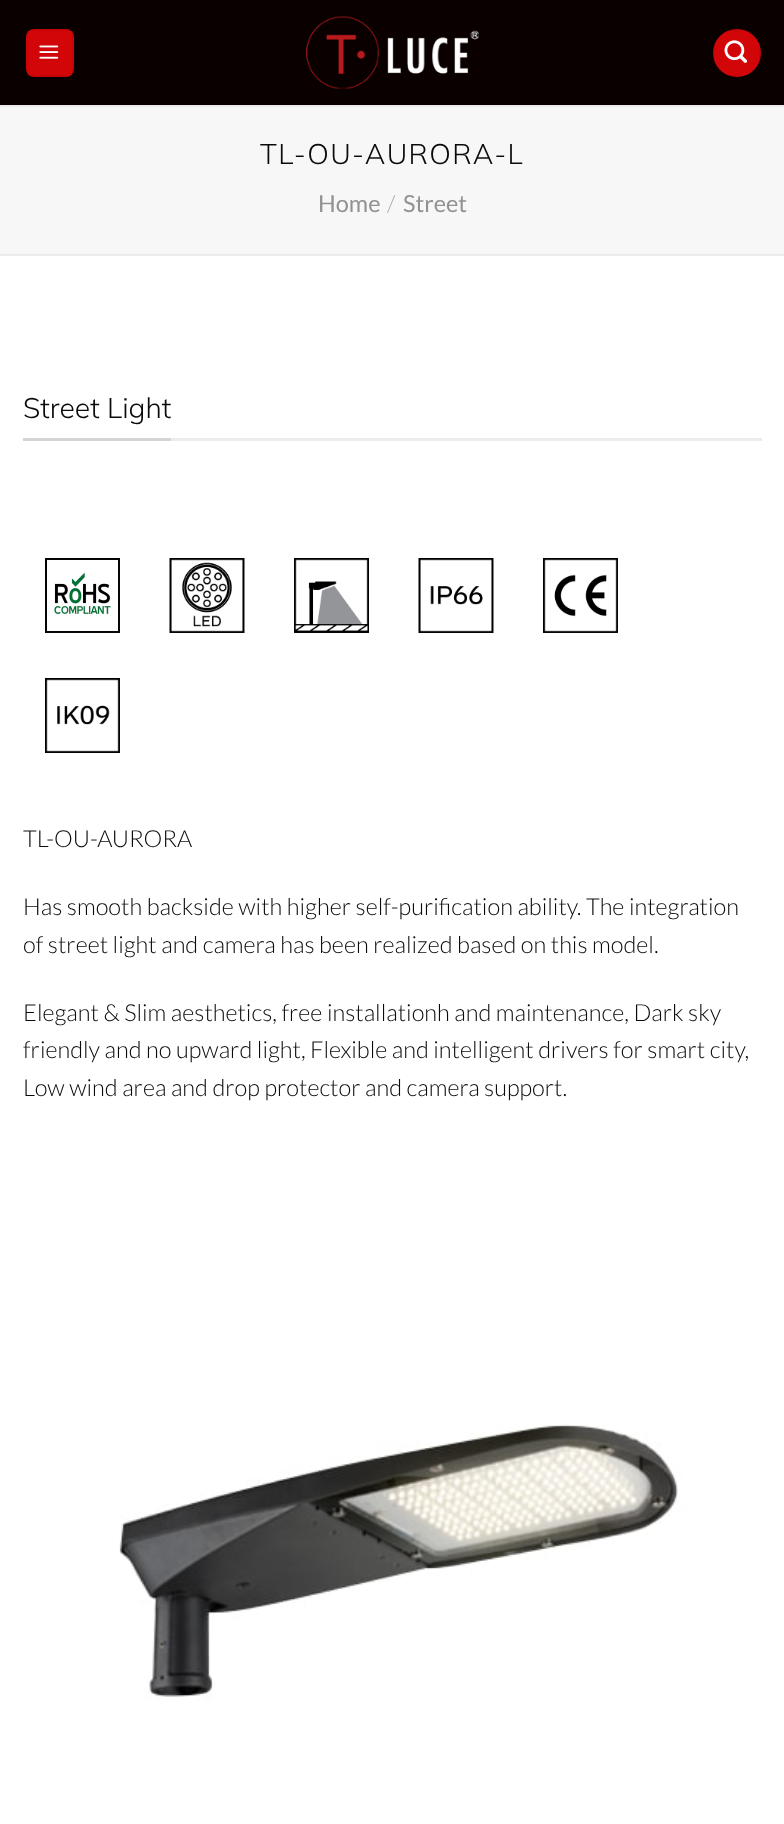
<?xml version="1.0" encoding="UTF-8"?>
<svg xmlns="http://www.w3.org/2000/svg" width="784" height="1824">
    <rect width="100%" height="100%" fill="#FFFFFF"/>
    <rect x="0" y="0" width="784" height="105" fill="#0A0000"/>
    <rect x="26" y="29" width="48" height="48" rx="8" fill="#D20609"/>
    <rect x="27" y="30" width="46" height="46" fill="none" stroke="#000000" stroke-opacity="0.05" stroke-width="2"/>
    <image x="39" y="45" width="20" height="14" href="img_01.png"/>
    <image x="306" y="16" width="173" height="73" href="img_02.png"/>
    <circle cx="737" cy="53" r="24" fill="#D20609"/>
    <rect x="714" y="30" width="46" height="46" fill="none" stroke="#000000" stroke-opacity="0.05" stroke-width="2"/>
    <image x="724" y="40" width="24" height="23" href="img_03.png"/>
    <rect x="0" y="107" width="784" height="147" fill="#F7F7F7"/>
    <rect x="0" y="105" width="784" height="2" fill="#ECECEC"/>
    <rect x="0" y="254" width="784" height="2" fill="#ECECEC"/>
    <text x="260" y="164" font-family="Mulish" font-size="28.25" font-weight="300" letter-spacing="1.4" fill="#0A0A0A">TL-OU-AURORA-L</text>
    <text x="318" y="212" font-family="Lato" font-size="23.5" fill="#929292">Home</text>
    <text x="387" y="212" font-family="Lato" font-size="23.5" font-weight="300" fill="#ACACAC">/</text>
    <text x="403" y="212" font-family="Lato" font-size="23.5" fill="#929292">Street</text>
    <rect x="171" y="438" width="591" height="3" fill="#ECECEC"/>
    <rect x="23" y="438" width="148" height="3" fill="#D4D4D4"/>
    <text x="23" y="418" font-family="Mulish" font-size="28.25" font-weight="300" fill="#0A0A0A">Street Light</text>
    <image x="45" y="558" width="75" height="75" href="img_04.png"/>
    <image x="169" y="558" width="76" height="75" href="img_05.png"/>
    <image x="294" y="558" width="75" height="75" href="img_06.png"/>
    <image x="418" y="558" width="76" height="75" href="img_07.png"/>
    <image x="543" y="558" width="75" height="75" href="img_08.png"/>
    <image x="45" y="678" width="75" height="75" href="img_09.png"/>
    <text x="23" y="847" font-family="Lato" font-size="23.5" font-weight="300" fill="#0A0A0A">TL-OU-AURORA</text>
    <text font-family="Lato" font-size="23.5" font-weight="300" fill="#0A0A0A">
        <tspan x="23" y="915">Has smooth backside with higher self-purification ability. The integration</tspan>
        <tspan x="23" y="953">of street light and camera has been realized based on this model.</tspan>
    </text>
    <text font-family="Lato" font-size="23.5" font-weight="300" fill="#0A0A0A">
        <tspan x="23" y="1021">Elegant &amp; Slim aesthetics, free installationh and maintenance, Dark sky</tspan>
        <tspan x="23" y="1058">friendly and no upward light, Flexible and intelligent drivers for smart city,</tspan>
        <tspan x="23" y="1096">Low wind area and drop protector and camera support.</tspan>
    </text>
    <image x="119" y="1419" width="566" height="282" href="img_10.png"/>
</svg>
